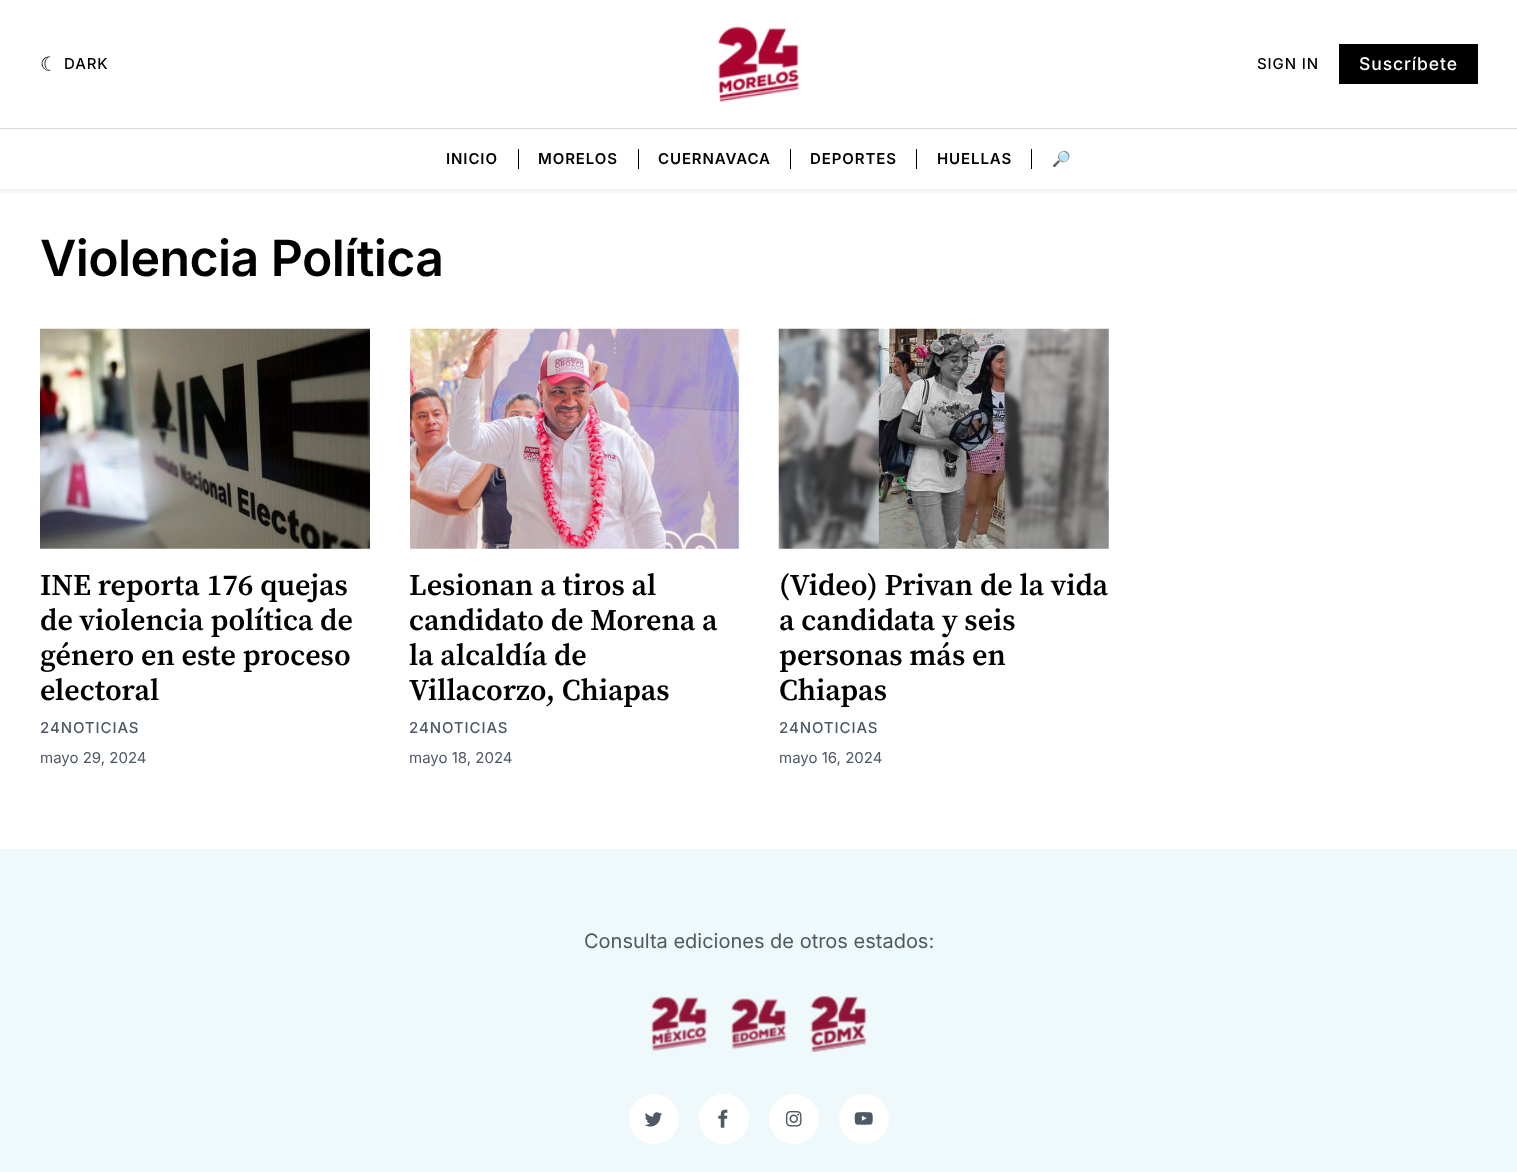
<?xml version="1.0" encoding="UTF-8"?>
<svg xmlns="http://www.w3.org/2000/svg" width="1517" height="1172">
    <defs>
        <clipPath id="clip1"><rect x="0" y="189" width="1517" height="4"/></clipPath>
        <filter id="blur1" x="-50%" y="-200%" width="200%" height="500%"><feGaussianBlur stdDeviation="2.5"/></filter>
    </defs>
    <rect width="100%" height="100%" fill="#FFFFFF"/>
    <g clip-path="url(#clip1)">
        <rect x="-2" y="-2" width="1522" height="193" fill="#000000" fill-opacity="0.08" filter="url(#blur1)"/>
    </g>
    <rect x="0" y="128" width="1517" height="1" fill="#D9D9D9"/>
    <text x="40" y="71" font-family="DejaVu Sans" font-size="20" letter-spacing="0.9" fill="#000000">☾</text>
    <text x="64" y="69" font-family="Inter" font-size="15" font-weight="500" letter-spacing="0.9" fill="#000000">DARK</text>
    <image x="718" y="26" width="81" height="76" href="img_01.png"/>
    <text x="1257" y="69" font-family="Inter" font-size="15" font-weight="500" letter-spacing="0.9" fill="#000000">SIGN IN</text>
    <rect x="1339" y="44" width="139" height="40" fill="#000000"/>
    <text x="1359" y="70" font-family="Inter" font-size="17.5" font-weight="500" letter-spacing="0.9" fill="#FFFFFF">Suscríbete</text>
    <text x="446" y="164" font-family="Inter" font-size="15" font-weight="600" letter-spacing="0.9" fill="#000000">INICIO</text>
    <rect x="518" y="149" width="1" height="20" fill="#000000"/>
    <text x="538" y="164" font-family="Inter" font-size="15" font-weight="600" letter-spacing="0.9" fill="#000000">MORELOS</text>
    <rect x="638" y="149" width="1" height="20" fill="#000000"/>
    <text x="658" y="164" font-family="Inter" font-size="15" font-weight="600" letter-spacing="0.9" fill="#000000">CUERNAVACA</text>
    <rect x="790" y="149" width="1" height="20" fill="#000000"/>
    <text x="810" y="164" font-family="Inter" font-size="15" font-weight="600" letter-spacing="0.9" fill="#000000">DEPORTES</text>
    <rect x="916" y="149" width="1" height="20" fill="#000000"/>
    <text x="937" y="164" font-family="Inter" font-size="15" font-weight="600" letter-spacing="0.9" fill="#000000">HUELLAS</text>
    <rect x="1031" y="149" width="1" height="20" fill="#000000"/>
    <text x="1052" y="164" font-family="Noto Color Emoji" font-size="15" font-weight="700" letter-spacing="0.9" fill="#000000">🔎</text>
    <text x="40" y="276" font-family="Inter" font-size="50" font-weight="600" letter-spacing="-0.6" fill="#000000">Violencia Política</text>
    <image x="40" y="328" width="330" height="221" href="img_02.png"/>
    <text font-family="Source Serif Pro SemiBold" font-size="30" font-weight="600" fill="#000000">
        <tspan x="40" y="595">INE reporta 176 quejas</tspan>
        <tspan x="40" y="630">de violencia política de</tspan>
        <tspan x="40" y="665">género en este proceso</tspan>
        <tspan x="40" y="700">electoral</tspan>
    </text>
    <text x="40" y="733" font-family="Inter" font-size="15" font-weight="500" letter-spacing="0.9" fill="#4E5965">24NOTICIAS</text>
    <text x="40" y="763" font-family="Inter" font-size="15" fill="#4E5965">mayo 29, 2024</text>
    <rect x="410" y="329" width="329" height="220" fill="#EFF8FA"/>
    <image x="410" y="328" width="329" height="221" href="img_03.png"/>
    <text font-family="Source Serif Pro SemiBold" font-size="30" font-weight="600" fill="#000000">
        <tspan x="409" y="595">Lesionan a tiros al</tspan>
        <tspan x="409" y="630">candidato de Morena a</tspan>
        <tspan x="409" y="665">la alcaldía de</tspan>
        <tspan x="409" y="700">Villacorzo, Chiapas</tspan>
    </text>
    <text x="409" y="733" font-family="Inter" font-size="15" font-weight="500" letter-spacing="0.9" fill="#4E5965">24NOTICIAS</text>
    <text x="409" y="763" font-family="Inter" font-size="15" fill="#4E5965">mayo 18, 2024</text>
    <rect x="779" y="329" width="330" height="220" fill="#EFF8FA"/>
    <image x="778" y="328" width="331" height="221" href="img_04.png"/>
    <text font-family="Source Serif Pro SemiBold" font-size="30" font-weight="600" fill="#000000">
        <tspan x="779" y="595">(Video) Privan de la vida</tspan>
        <tspan x="779" y="630">a candidata y seis</tspan>
        <tspan x="779" y="665">personas más en</tspan>
        <tspan x="779" y="700">Chiapas</tspan>
    </text>
    <text x="779" y="733" font-family="Inter" font-size="15" font-weight="500" letter-spacing="0.9" fill="#4E5965">24NOTICIAS</text>
    <text x="779" y="763" font-family="Inter" font-size="15" fill="#4E5965">mayo 16, 2024</text>
    <rect x="0" y="849" width="1517" height="323" fill="#EFF8FA"/>
    <text x="584" y="948" font-family="Inter" font-size="20" fill="#4E5965">Consulta ediciones de otros estados:</text>
    <image x="651" y="996" width="56" height="55" href="img_05.png"/>
    <image x="731" y="998" width="56" height="52" href="img_06.png"/>
    <image x="810" y="995" width="57" height="58" href="img_07.png"/>
    <circle cx="654" cy="1119" r="25" fill="#FFFFFF"/>
    <image x="644" y="1112" width="18" height="15" href="img_08.png"/>
    <circle cx="724" cy="1119" r="25" fill="#FFFFFF"/>
    <image x="718" y="1109" width="10" height="19" href="img_09.png"/>
    <circle cx="794" cy="1119" r="25" fill="#FFFFFF"/>
    <image x="785" y="1110" width="17" height="17" href="img_10.png"/>
    <circle cx="864" cy="1119" r="25" fill="#FFFFFF"/>
    <image x="854" y="1112" width="19" height="13" href="img_11.png"/>
</svg>
